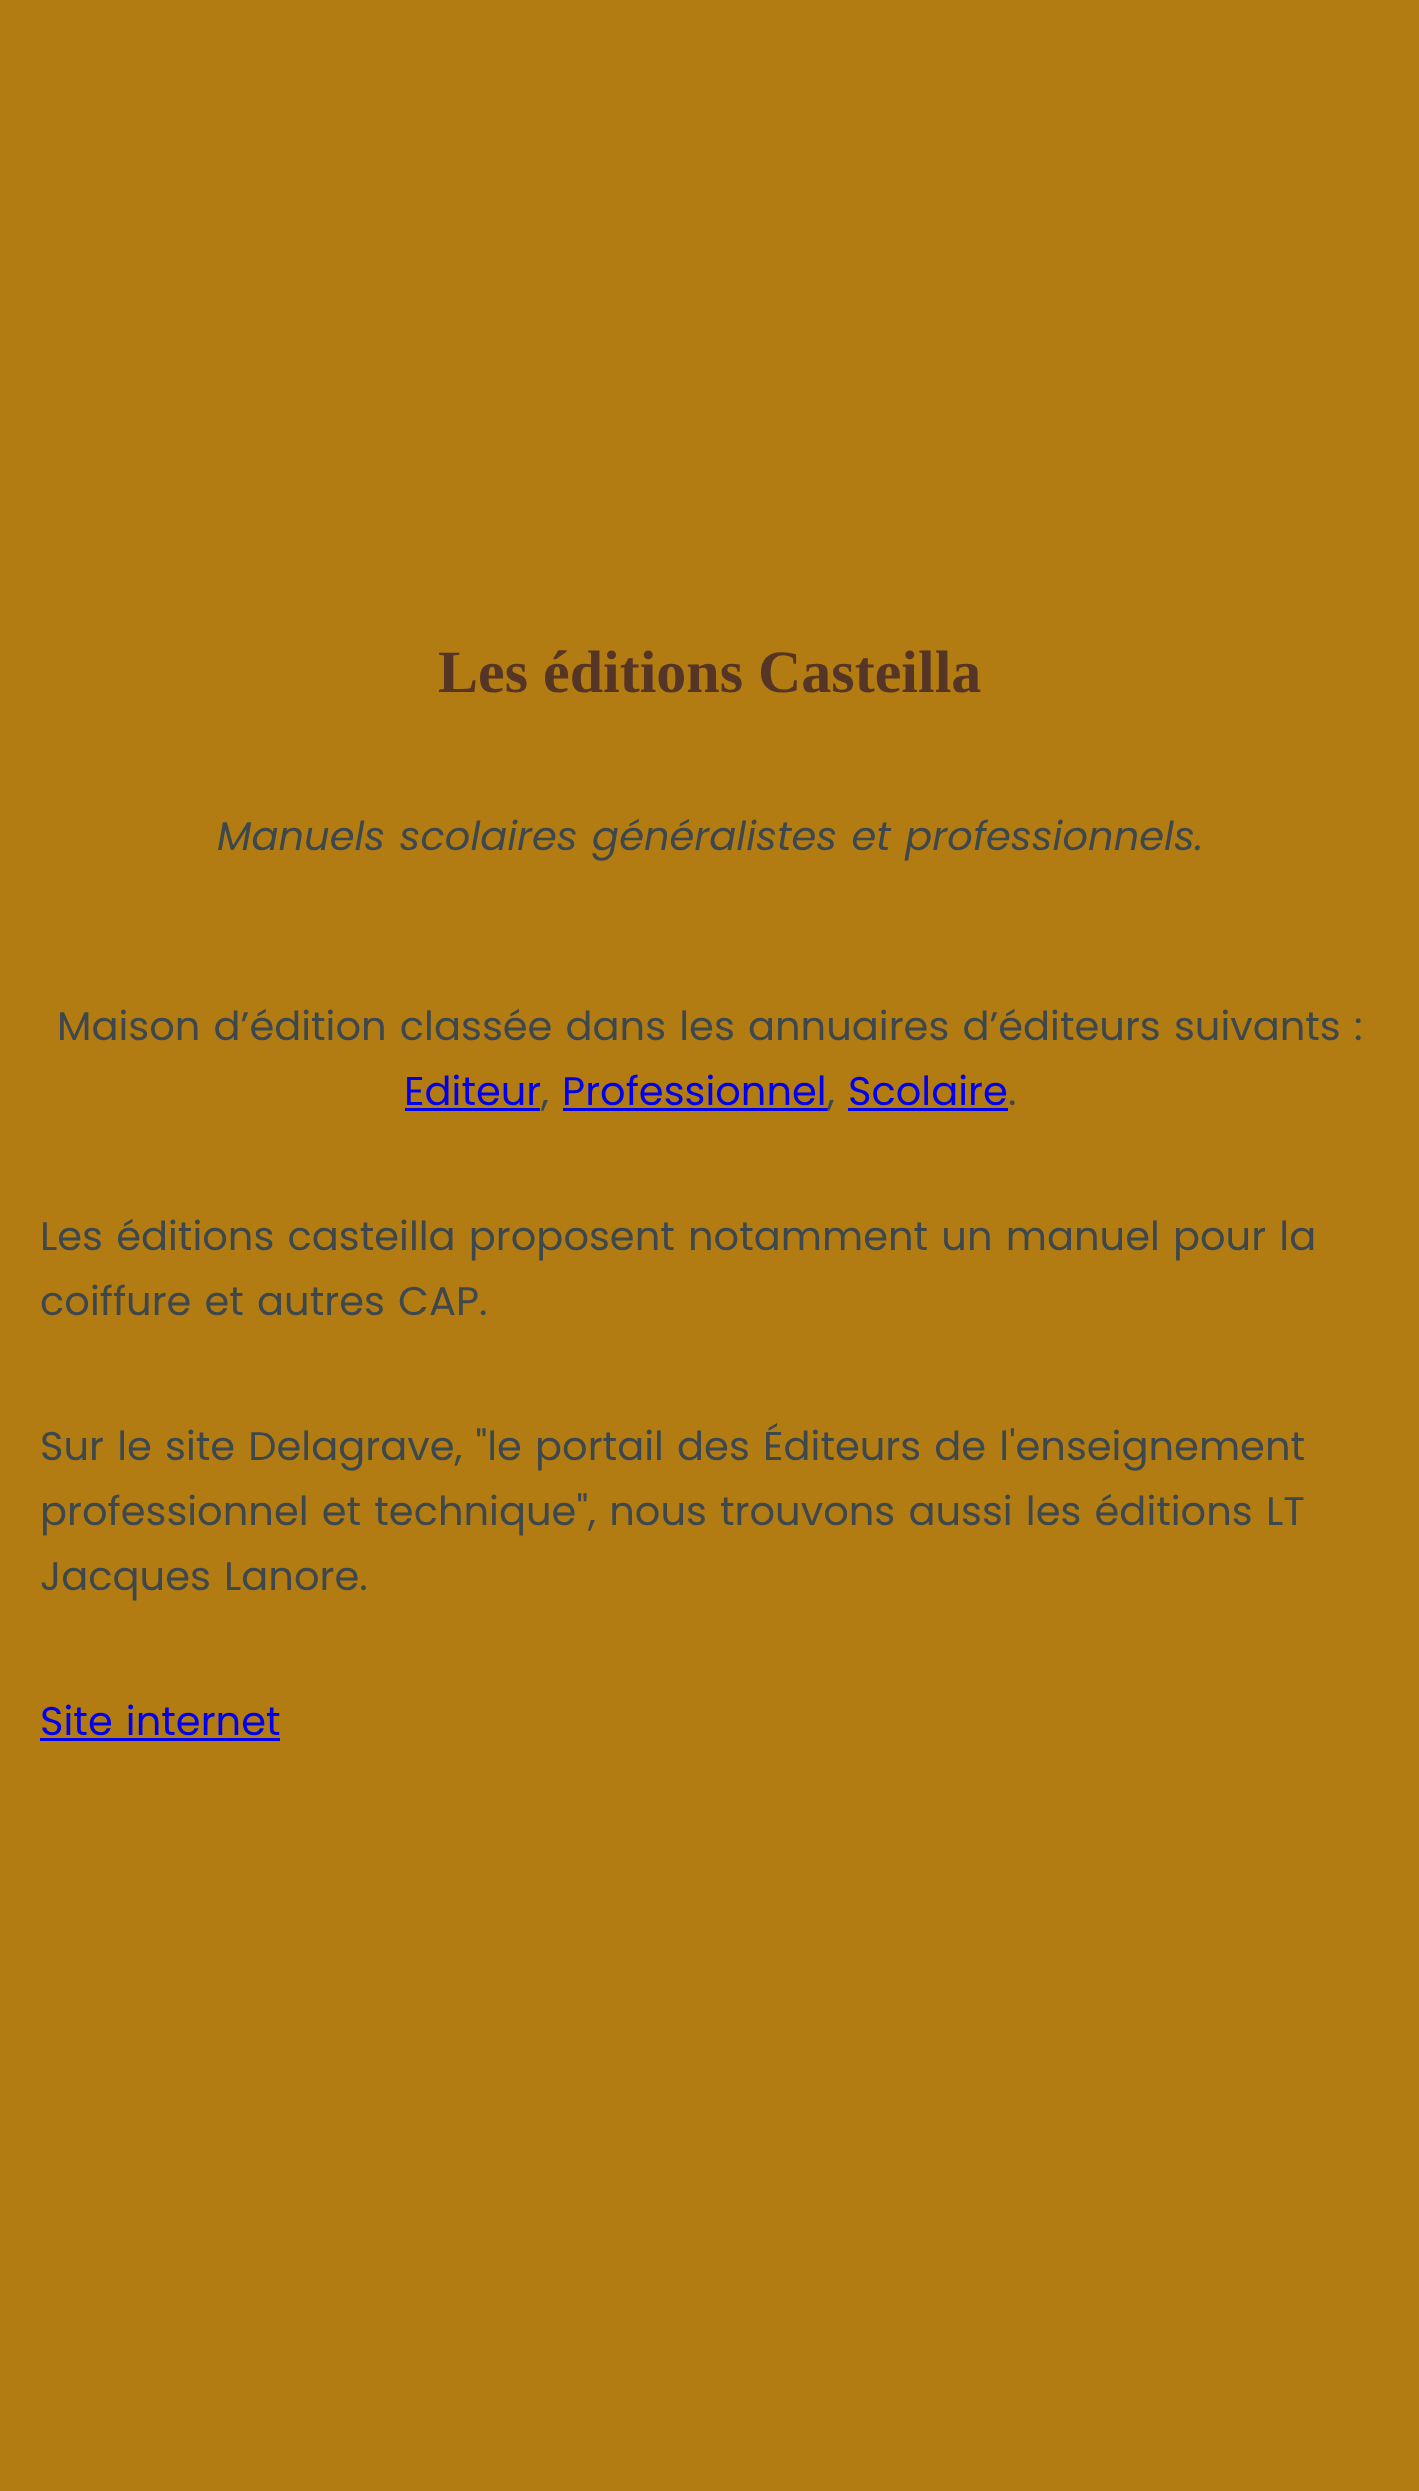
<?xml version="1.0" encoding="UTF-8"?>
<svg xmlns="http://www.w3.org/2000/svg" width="1419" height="2491">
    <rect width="100%" height="100%" fill="#B37C12"/>
    <text x="438" y="692" font-family="Liberation Serif" font-size="60" font-weight="700" fill="#553525">Les éditions Casteilla</text>
    <text x="217" y="850" word-spacing="2.5" font-family="Poppins" font-size="40" font-style="italic" fill="#3C484E">Manuels scolaires généralistes et professionnels.</text>
    <text x="57" y="1040" word-spacing="2.5" font-family="Poppins" font-size="40" fill="#3C484E">Maison d’édition classée dans les annuaires d’éditeurs suivants :</text>
    <text x="404" y="1105" font-family="Poppins" font-size="40" fill="#0000EE">Editeur</text>
    <rect x="405" y="1108" width="135" height="3" fill="#0000EE"/>
    <text x="541" y="1105" font-family="Poppins" font-size="40" fill="#3C484E">,</text>
    <text x="562" y="1105" font-family="Poppins" font-size="40" fill="#0000EE">Professionnel</text>
    <rect x="563" y="1108" width="265" height="3" fill="#0000EE"/>
    <text x="827" y="1105" font-family="Poppins" font-size="40" fill="#3C484E">,</text>
    <text x="848" y="1105" font-family="Poppins" font-size="40" fill="#0000EE">Scolaire</text>
    <rect x="848" y="1108" width="160" height="3" fill="#0000EE"/>
    <text x="1008" y="1105" font-family="Poppins" font-size="40" fill="#3C484E">.</text>
    <text font-family="Poppins" font-size="40" fill="#3C484E">
        <tspan x="40" y="1250" word-spacing="2.5">Les éditions casteilla proposent notamment un manuel pour la</tspan>
        <tspan x="40" y="1315" word-spacing="2.5">coiffure et autres CAP.</tspan>
    </text>
    <text font-family="Poppins" font-size="40" fill="#3C484E">
        <tspan x="40" y="1460" word-spacing="2.5">Sur le site Delagrave, "le portail des Éditeurs de l'enseignement</tspan>
        <tspan x="40" y="1525" word-spacing="2.5">professionnel et technique", nous trouvons aussi les éditions LT</tspan>
        <tspan x="40" y="1590" word-spacing="2.5">Jacques Lanore.</tspan>
    </text>
    <text x="40" y="1735" word-spacing="2.5" font-family="Poppins" font-size="40" fill="#0000EE">Site internet</text>
    <rect x="40" y="1738" width="240" height="3" fill="#0000EE"/>
</svg>
